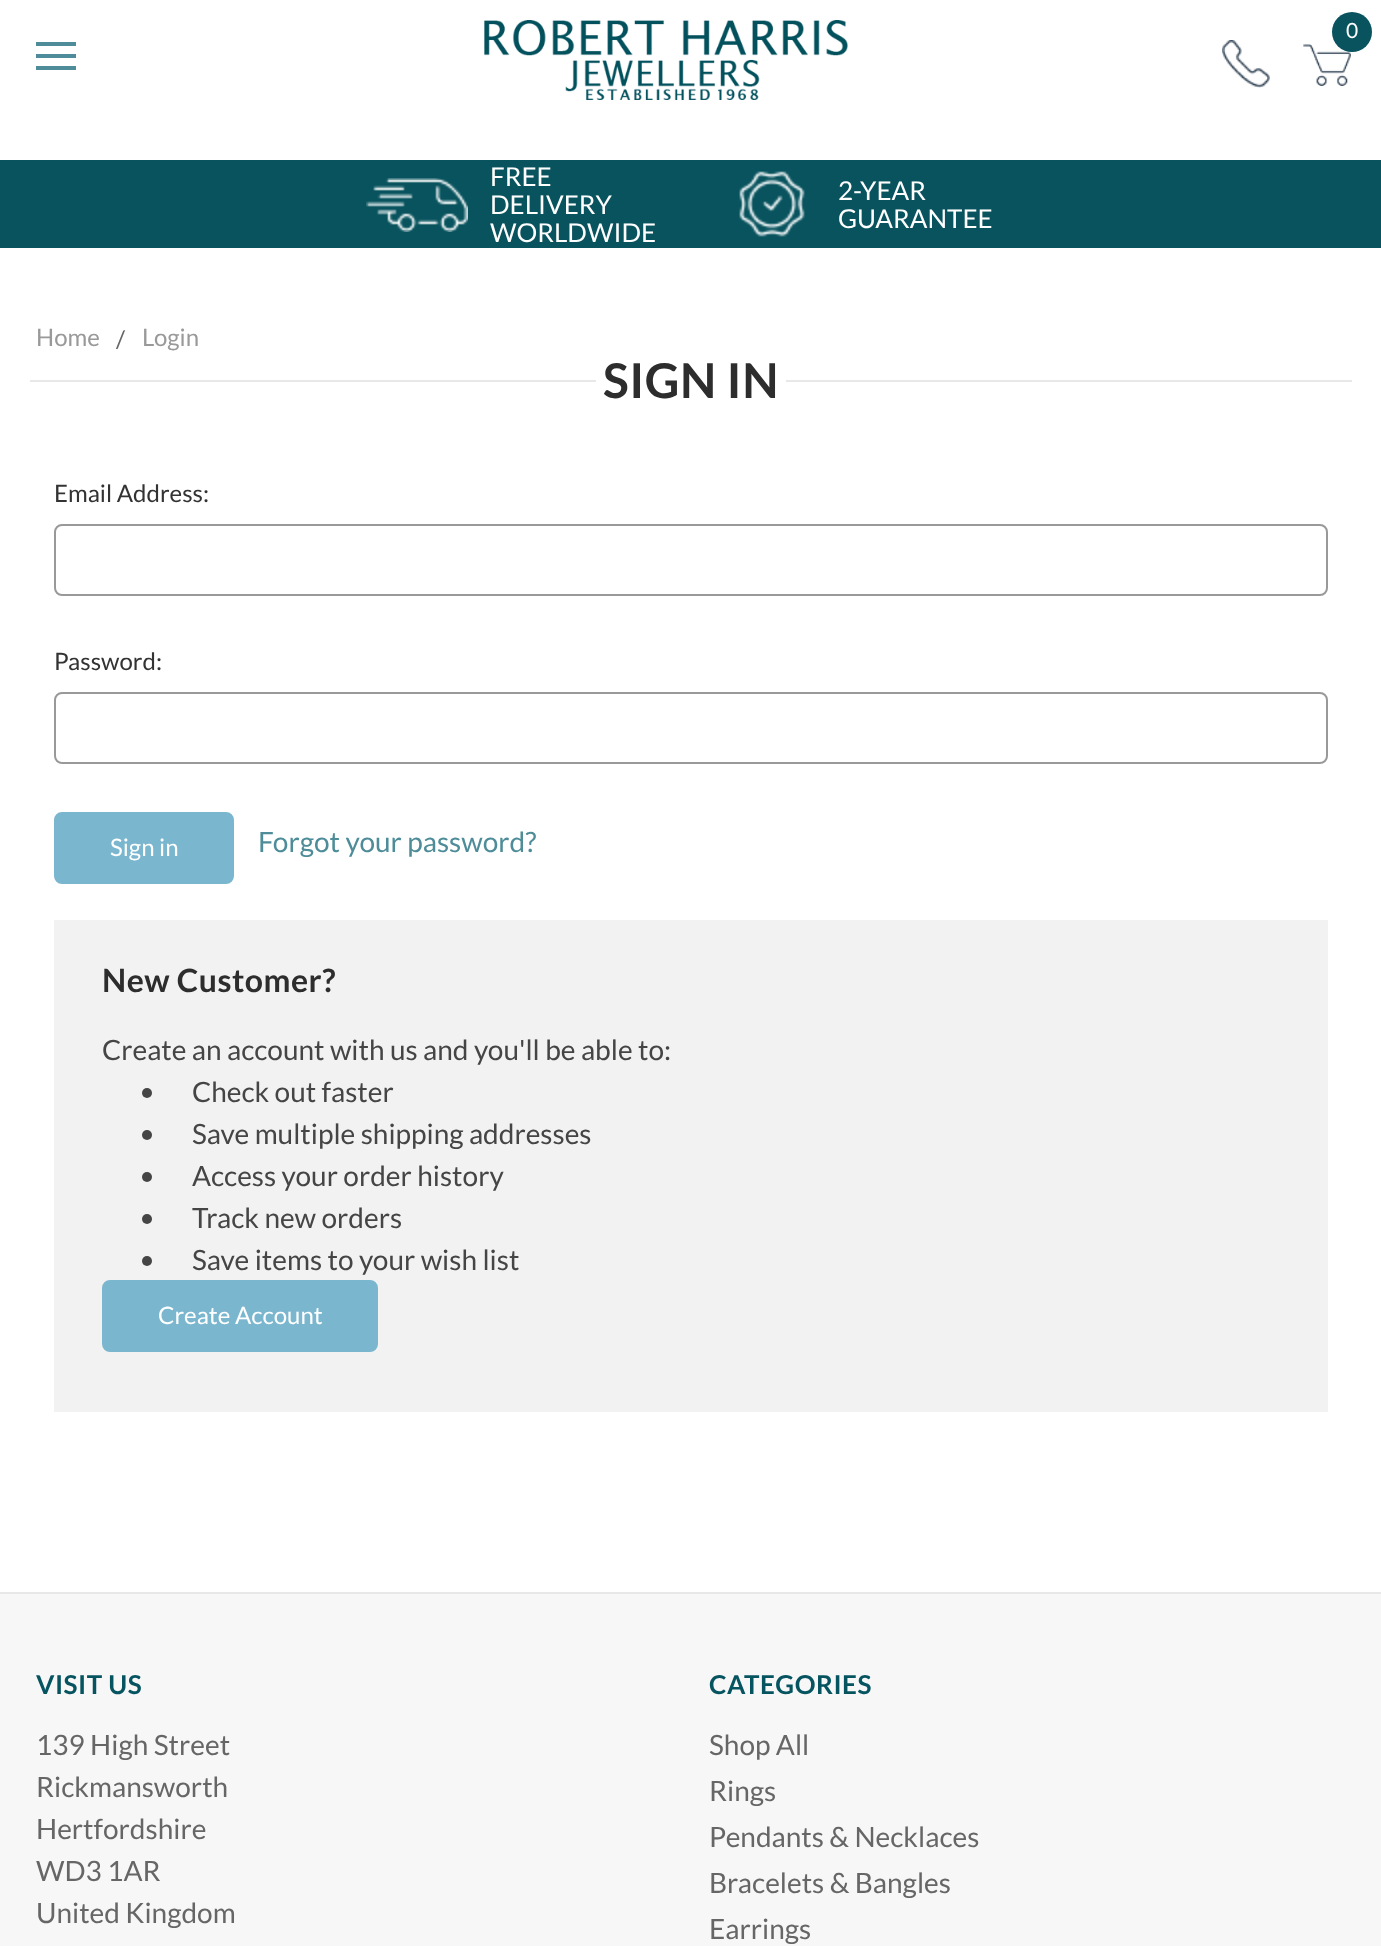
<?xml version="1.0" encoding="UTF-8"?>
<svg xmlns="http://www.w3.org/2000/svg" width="1381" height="1946">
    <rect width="100%" height="100%" fill="#FFFFFF"/>
    <image x="484" y="20" width="364" height="80" href="img_01.png"/>
    <image x="1303" y="44" width="48" height="42" href="img_02.png"/>
    <circle cx="1352" cy="32" r="20" fill="#08535E"/>
    <text x="1346" y="38" font-family="Lato" font-size="21" fill="#FFFFFF">0</text>
    <image x="1222" y="40" width="48" height="48" href="img_03.png"/>
    <rect x="36" y="54" width="40" height="4" fill="#4D8C98"/>
    <rect x="36" y="42" width="40" height="4" fill="#4D8C98"/>
    <rect x="36" y="66" width="40" height="4" fill="#4D8C98"/>
    <rect x="0" y="160" width="1381" height="88" fill="#08535E"/>
    <image x="366" y="178" width="102" height="54" href="img_04.png"/>
    <text font-family="Lato" font-size="26" fill="#FFFFFF">
        <tspan x="490" y="186">FREE</tspan>
        <tspan x="490" y="214">DELIVERY</tspan>
        <tspan x="490" y="242">WORLDWIDE</tspan>
    </text>
    <image x="739" y="171" width="66" height="66" href="img_05.png"/>
    <text font-family="Lato" font-size="26" fill="#FFFFFF">
        <tspan x="838" y="200">2-YEAR</tspan>
        <tspan x="838" y="228">GUARANTEE</tspan>
    </text>
    <text x="36" y="346" font-family="Lato" font-size="24" fill="#999999">Home</text>
    <text x="116" y="348" font-family="Lato" font-size="24" fill="#666666">/</text>
    <text x="142" y="346" font-family="Lato" font-size="24" fill="#999999">Login</text>
    <rect x="30" y="380" width="566" height="2" fill="#E8E8E8"/>
    <text x="603" y="398" font-family="Lato" font-size="48" font-weight="700" letter-spacing="0.5" fill="#2D2D2D">SIGN IN</text>
    <rect x="786" y="380" width="566" height="2" fill="#E8E8E8"/>
    <text x="54" y="502" font-family="Lato" font-size="24" fill="#333333">Email Address:</text>
    <rect x="55" y="525" width="1272" height="70" rx="7" fill="none" stroke="#999999" stroke-width="2"/>
    <text x="54" y="670" font-family="Lato" font-size="24" fill="#333333">Password:</text>
    <rect x="55" y="693" width="1272" height="70" rx="7" fill="none" stroke="#999999" stroke-width="2"/>
    <rect x="55" y="813" width="178" height="70" rx="7" fill="#7AB7CF" stroke="#7AB7CF" stroke-width="2"/>
    <text x="110" y="856" font-family="Lato" font-size="24" fill="#FFFFFF">Sign in</text>
    <text x="258" y="852" font-family="Lato" font-size="28" fill="#4D8C98">Forgot your password?</text>
    <rect x="54" y="920" width="1274" height="492" fill="#F2F2F2"/>
    <text x="102" y="992" font-family="Lato" font-size="32" font-weight="700" letter-spacing="0.5" fill="#2D2D2D">New Customer?</text>
    <text x="102" y="1060" font-family="Lato" font-size="28" fill="#454545">Create an account with us and you'll be able to:</text>
    <circle cx="147" cy="1093" r="5" fill="#454545"/>
    <text x="192" y="1102" font-family="Lato" font-size="28" fill="#454545">Check out faster</text>
    <circle cx="147" cy="1135" r="5" fill="#454545"/>
    <text x="192" y="1144" font-family="Lato" font-size="28" fill="#454545">Save multiple shipping addresses</text>
    <circle cx="147" cy="1177" r="5" fill="#454545"/>
    <text x="192" y="1186" font-family="Lato" font-size="28" fill="#454545">Access your order history</text>
    <circle cx="147" cy="1219" r="5" fill="#454545"/>
    <text x="192" y="1228" font-family="Lato" font-size="28" fill="#454545">Track new orders</text>
    <circle cx="147" cy="1261" r="5" fill="#454545"/>
    <text x="192" y="1270" font-family="Lato" font-size="28" fill="#454545">Save items to your wish list</text>
    <rect x="103" y="1281" width="274" height="70" rx="7" fill="#7AB7CF" stroke="#7AB7CF" stroke-width="2"/>
    <text x="158" y="1324" font-family="Lato" font-size="24" fill="#FFFFFF">Create Account</text>
    <rect x="0" y="1594" width="1381" height="352" fill="#F7F7F7"/>
    <rect x="0" y="1592" width="1381" height="2" fill="#E8E8E8"/>
    <text x="36" y="1694" font-family="Lato" font-size="26" font-weight="700" letter-spacing="0.5" fill="#065460">VISIT US</text>
    <text font-family="Lato" font-size="28" fill="#666666">
        <tspan x="36" y="1755">139 High Street</tspan>
        <tspan x="36" y="1797">Rickmansworth</tspan>
        <tspan x="36" y="1839">Hertfordshire</tspan>
        <tspan x="36" y="1881">WD3 1AR</tspan>
        <tspan x="36" y="1923">United Kingdom</tspan>
    </text>
    <text x="709" y="1694" font-family="Lato" font-size="26" font-weight="700" letter-spacing="0.5" fill="#065460">CATEGORIES</text>
    <text font-family="Lato" font-size="28" fill="#666666">
        <tspan x="709" y="1755">Shop All</tspan>
        <tspan x="709" y="1801">Rings</tspan>
        <tspan x="709" y="1847">Pendants &amp; Necklaces</tspan>
        <tspan x="709" y="1893">Bracelets &amp; Bangles</tspan>
        <tspan x="709" y="1939">Earrings</tspan>
    </text>
</svg>
